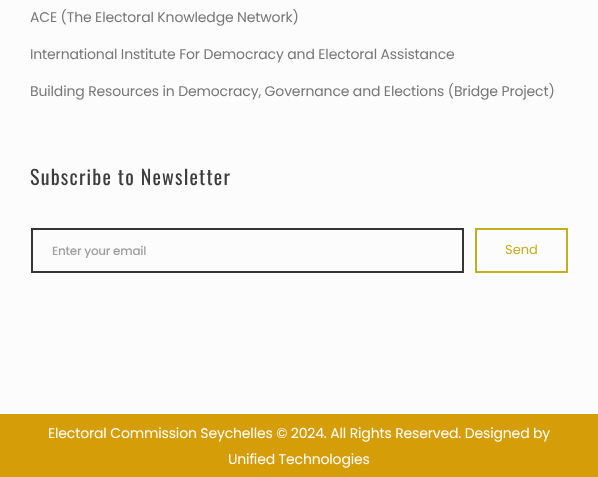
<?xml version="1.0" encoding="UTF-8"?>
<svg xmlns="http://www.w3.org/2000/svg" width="598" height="477">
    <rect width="100%" height="100%" fill="#FCFCFC"/>
    <text x="30" y="22" font-family="Poppins" font-size="14" letter-spacing="-0.15" fill="#777777">ACE (The Electoral Knowledge Network)</text>
    <text x="30" y="59" font-family="Poppins" font-size="14" letter-spacing="-0.15" fill="#777777">International Institute For Democracy and Electoral Assistance</text>
    <text x="30" y="96" font-family="Poppins" font-size="14" letter-spacing="-0.15" fill="#777777">Building Resources in Democracy, Governance and Elections (Bridge Project)</text>
    <text x="30" y="185" font-family="Oswald" font-size="20" letter-spacing="1.2" fill="#3D3C3C">Subscribe to Newsletter</text>
    <rect x="32" y="229" width="431" height="43" fill="none" stroke="#353535" stroke-width="2"/>
    <text x="52" y="255" font-family="Poppins" font-size="12" font-weight="500" letter-spacing="-0.25" fill="#9F9F9F">Enter your email</text>
    <rect x="476" y="229" width="91" height="43" fill="none" stroke="#C2AE1E" stroke-width="2"/>
    <text x="505" y="254" font-family="Poppins" font-size="13" fill="#C2AE1E">Send</text>
    <rect x="0" y="414" width="598" height="63" fill="#D59E09"/>
    <text x="48" y="438" font-family="Poppins" font-size="14" letter-spacing="-0.15" fill="#FFFFFF">Electoral Commission Seychelles © 2024. All Rights Reserved. Designed by</text>
    <text x="228" y="464" font-family="Poppins" font-size="14" letter-spacing="-0.15" fill="#FFFFFF">Unified Technologies</text>
</svg>
